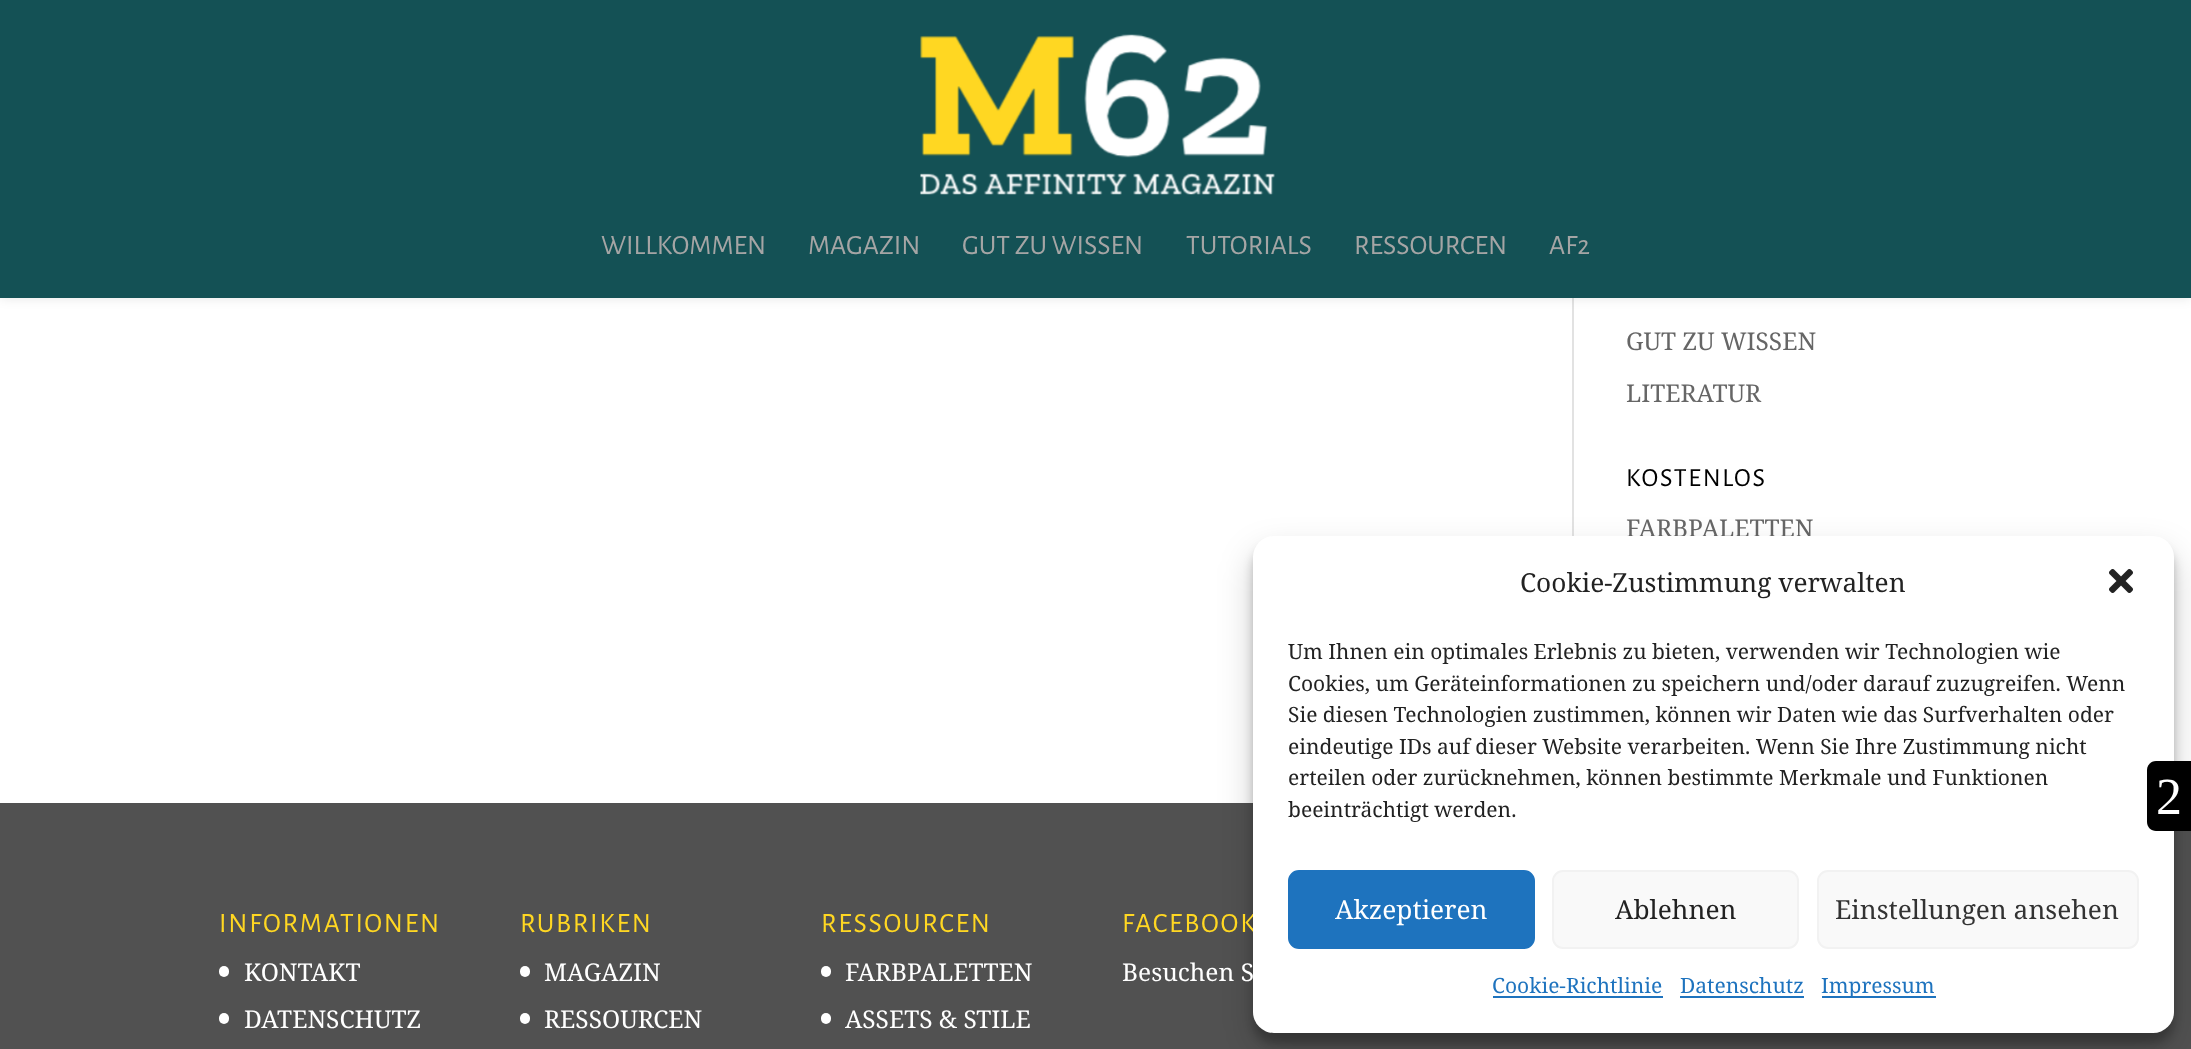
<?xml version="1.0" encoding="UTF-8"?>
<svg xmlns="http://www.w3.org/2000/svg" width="2191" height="1049">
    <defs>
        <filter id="blur1" x="-50%" y="-200%" width="200%" height="500%"><feGaussianBlur stdDeviation="6"/></filter>
        <filter id="blur2" x="-50%" y="-200%" width="200%" height="500%"><feGaussianBlur stdDeviation="5"/></filter>
        <filter id="blur3" x="-50%" y="-200%" width="200%" height="500%"><feGaussianBlur stdDeviation="17.5"/></filter>
    </defs>
    <rect width="100%" height="100%" fill="#FFFFFF"/>
    <rect x="1572" y="298" width="2" height="238" fill="#E2E2E2"/>
    <rect x="0" y="0" width="2191" height="298" fill="#000000" fill-opacity="0.1" filter="url(#blur1)"/>
    <rect x="0" y="0" width="2191" height="298" fill="#145155"/>
    <image x="920" y="34" width="355" height="161" href="img_01.png"/>
    <text x="601" y="254" font-family="Alegreya Sans" font-size="28" fill="#A5A5A5">WILLKOMMEN</text>
    <text x="808" y="254" font-family="Alegreya Sans" font-size="28" fill="#A5A5A5">MAGAZIN</text>
    <text x="962" y="254" font-family="Alegreya Sans" font-size="28" fill="#A5A5A5">GUT ZU WISSEN</text>
    <text x="1186" y="254" font-family="Alegreya Sans" font-size="28" fill="#A5A5A5">TUTORIALS</text>
    <text x="1354" y="254" font-family="Alegreya Sans" font-size="28" fill="#A5A5A5">RESSOURCEN</text>
    <text x="1549" y="254" font-family="Alegreya Sans" font-size="28" fill="#A5A5A5">AF2</text>
    <text x="1626" y="350" font-family="Noto Serif" font-size="24.5" fill="#666666">GUT ZU WISSEN</text>
    <text x="1626" y="402" font-family="Noto Serif" font-size="24.5" fill="#666666">LITERATUR</text>
    <text x="1626" y="486" font-family="Alegreya Sans SC" font-size="26.25" letter-spacing="1.75" fill="#000000">KOSTENLOS</text>
    <text x="1626" y="537" font-family="Noto Serif" font-size="24.5" fill="#666666">FARBPALETTEN</text>
    <rect x="0" y="803" width="2191" height="246" fill="#515151"/>
    <rect x="1253" y="546" width="921" height="497" rx="21" fill="#000000" fill-opacity="0.23" filter="url(#blur2)"/>
    <rect x="1253" y="553" width="921" height="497" rx="21" fill="#000000" fill-opacity="0.19" filter="url(#blur3)"/>
    <text x="1122" y="932" font-family="Alegreya Sans SC" font-size="28" letter-spacing="1.75" fill="#FFD722">FACEBOOK</text>
    <rect x="1253" y="536" width="921" height="497" rx="21" fill="#FFFFFF"/>
    <path d="M 2156 761 H 2191 V 831 H 2156 C 2151 831 2147 827 2147 822 V 770 C 2147 765 2151 761 2156 761 Z" fill="#000000"/>
    <text x="2156" y="814" font-family="Liberation Serif" font-size="52" fill="#FFFFFF">2</text>
    <text x="219" y="932" font-family="Alegreya Sans SC" font-size="28" letter-spacing="1.75" fill="#FFD722">INFORMATIONEN</text>
    <rect x="219" y="966" width="10" height="11" rx="5" fill="#FFFFFF"/>
    <text x="244" y="981" font-family="Noto Serif" font-size="24.5" fill="#FFFFFF">KONTAKT</text>
    <rect x="219" y="1013" width="10" height="11" rx="5" fill="#FFFFFF"/>
    <text x="244" y="1028" font-family="Noto Serif" font-size="24.5" fill="#FFFFFF">DATENSCHUTZ</text>
    <text x="520" y="932" font-family="Alegreya Sans SC" font-size="28" letter-spacing="1.75" fill="#FFD722">RUBRIKEN</text>
    <rect x="520" y="966" width="10" height="11" rx="5" fill="#FFFFFF"/>
    <text x="544" y="981" font-family="Noto Serif" font-size="24.5" fill="#FFFFFF">MAGAZIN</text>
    <rect x="520" y="1013" width="10" height="11" rx="5" fill="#FFFFFF"/>
    <text x="544" y="1028" font-family="Noto Serif" font-size="24.5" fill="#FFFFFF">RESSOURCEN</text>
    <text x="821" y="932" font-family="Alegreya Sans SC" font-size="28" letter-spacing="1.75" fill="#FFD722">RESSOURCEN</text>
    <rect x="821" y="966" width="10" height="11" rx="5" fill="#FFFFFF"/>
    <text x="845" y="981" font-family="Noto Serif" font-size="24.5" fill="#FFFFFF">FARBPALETTEN</text>
    <rect x="821" y="1013" width="10" height="11" rx="5" fill="#FFFFFF"/>
    <text x="845" y="1028" font-family="Noto Serif" font-size="24.5" fill="#FFFFFF">ASSETS &amp; STILE</text>
    <text x="1122" y="981" font-family="Noto Serif" font-size="24.5" fill="#FFFFFF">Besuchen S</text>
    <text x="1520" y="592" font-family="Noto Serif" font-size="26.25" fill="#222222">Cookie-Zustimmung verwalten</text>
    <image x="2109" y="569" width="24" height="24" href="img_02.png"/>
    <text font-family="Noto Serif" font-size="21" fill="#222222">
        <tspan x="1288" y="659">Um Ihnen ein optimales Erlebnis zu bieten, verwenden wir Technologien wie</tspan>
        <tspan x="1288" y="691">Cookies, um Geräteinformationen zu speichern und/oder darauf zuzugreifen. Wenn</tspan>
        <tspan x="1288" y="722">Sie diesen Technologien zustimmen, können wir Daten wie das Surfverhalten oder</tspan>
        <tspan x="1288" y="754">eindeutige IDs auf dieser Website verarbeiten. Wenn Sie Ihre Zustimmung nicht</tspan>
        <tspan x="1288" y="785">erteilen oder zurücknehmen, können bestimmte Merkmale und Funktionen</tspan>
        <tspan x="1288" y="817">beeinträchtigt werden.</tspan>
    </text>
    <rect x="1289" y="871" width="245" height="77" rx="10" fill="#1E73BE" stroke="#1E73BE" stroke-width="2"/>
    <text x="1335" y="919" font-family="Noto Serif" font-size="26.25" fill="#FFFFFF">Akzeptieren</text>
    <rect x="1553" y="871" width="245" height="77" rx="10" fill="#F9F9F9" stroke="#F2F2F2" stroke-width="2"/>
    <text x="1615" y="919" font-family="Noto Serif" font-size="26.25" fill="#222222">Ablehnen</text>
    <rect x="1818" y="871" width="320" height="77" rx="10" fill="#F9F9F9" stroke="#F2F2F2" stroke-width="2"/>
    <text x="1835" y="919" font-family="Noto Serif" font-size="26.25" fill="#333333">Einstellungen ansehen</text>
    <text x="1492" y="993" font-family="Noto Serif" font-size="21" fill="#1E73BE">Cookie-Richtlinie</text>
    <rect x="1493" y="996" width="170" height="2" fill="#1E73BE"/>
    <text x="1680" y="993" font-family="Noto Serif" font-size="21" fill="#1E73BE">Datenschutz</text>
    <rect x="1680" y="996" width="124" height="2" fill="#1E73BE"/>
    <rect x="1822" y="996" width="114" height="2" fill="#1E73BE"/>
    <text x="1821" y="993" font-family="Noto Serif" font-size="21" fill="#1E73BE">Impressum</text>
</svg>
